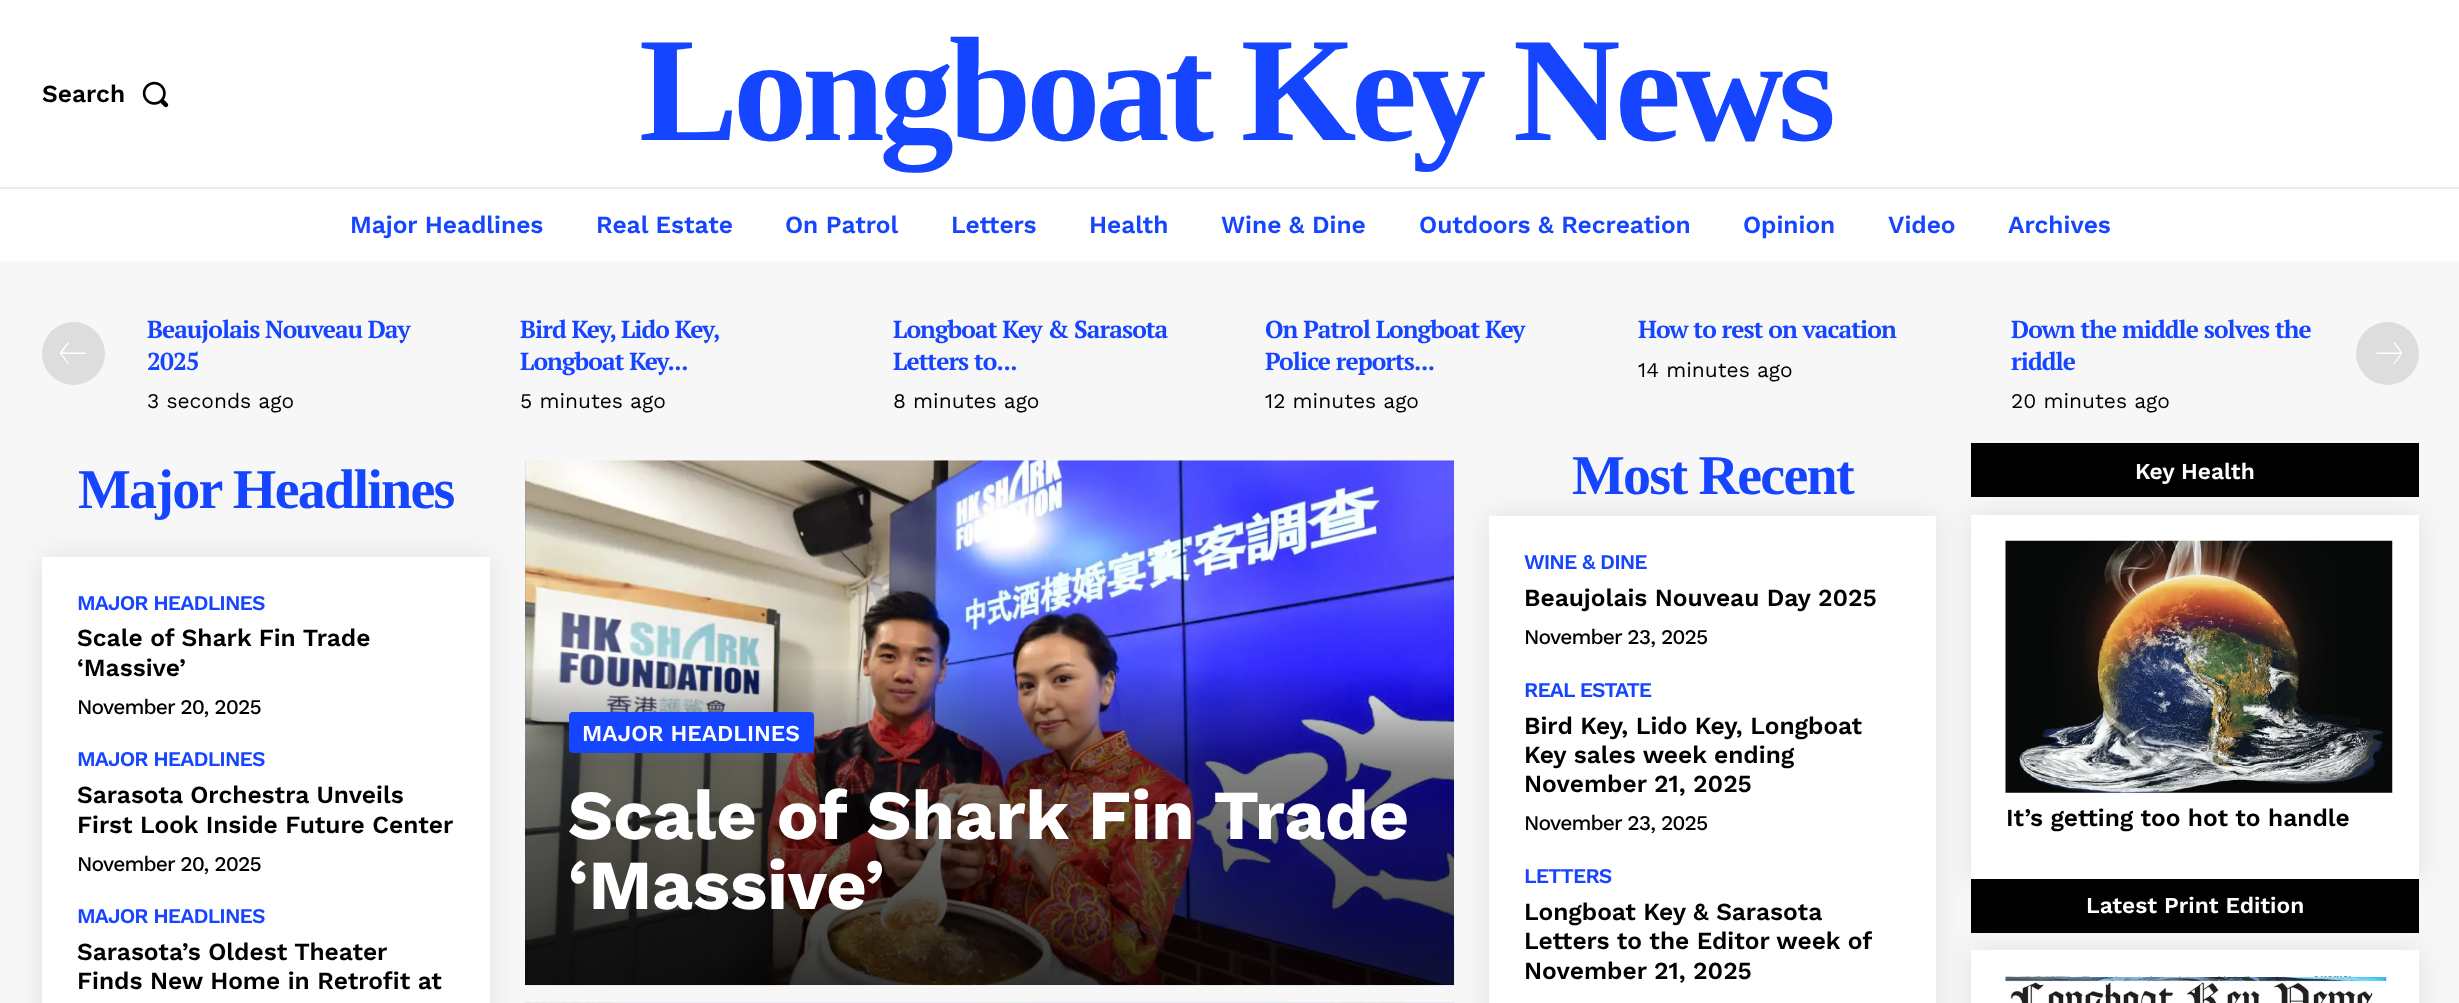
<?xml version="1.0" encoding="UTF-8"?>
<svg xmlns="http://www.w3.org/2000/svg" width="2459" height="1003">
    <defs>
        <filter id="blur1" x="-50%" y="-200%" width="200%" height="500%"><feGaussianBlur stdDeviation="14"/></filter>
        <linearGradient id="g1" gradientUnits="userSpaceOnUse" x1="990" y1="985" x2="990" y2="460"><stop offset="0" stop-color="#000000" stop-opacity="0.8"/><stop offset="0.42" stop-color="#000000" stop-opacity="0.5"/><stop offset="0.61" stop-color="#000000" stop-opacity="0"/><stop offset="1" stop-color="#000000" stop-opacity="0"/></linearGradient>
    </defs>
    <rect width="100%" height="100%" fill="#FFFFFF"/>
    <text x="42" y="102" font-family="Work Sans" font-size="24.5" font-weight="600" fill="#000000">Search</text>
    <image x="142" y="81" width="27" height="27" href="img_01.png"/>
    <text x="639" y="140" font-family="Liberation Serif" font-size="148.75" font-weight="700" letter-spacing="-5.25" fill="#1645FF">Longboat Key News</text>
    <rect x="0" y="187" width="2459" height="2" fill="#EAEAEA"/>
    <text x="350" y="233" font-family="Work Sans" font-size="24.5" font-weight="600" fill="#1645FF">Major Headlines</text>
    <text x="596" y="233" font-family="Work Sans" font-size="24.5" font-weight="600" fill="#1645FF">Real Estate</text>
    <text x="785" y="233" font-family="Work Sans" font-size="24.5" font-weight="600" fill="#1645FF">On Patrol</text>
    <text x="951" y="233" font-family="Work Sans" font-size="24.5" font-weight="600" fill="#1645FF">Letters</text>
    <text x="1089" y="233" font-family="Work Sans" font-size="24.5" font-weight="600" fill="#1645FF">Health</text>
    <text x="1221" y="233" font-family="Work Sans" font-size="24.5" font-weight="600" fill="#1645FF">Wine &amp; Dine</text>
    <text x="1419" y="233" font-family="Work Sans" font-size="24.5" font-weight="600" fill="#1645FF">Outdoors &amp; Recreation</text>
    <text x="1743" y="233" font-family="Work Sans" font-size="24.5" font-weight="600" fill="#1645FF">Opinion</text>
    <text x="1888" y="233" font-family="Work Sans" font-size="24.5" font-weight="600" fill="#1645FF">Video</text>
    <text x="2008" y="233" font-family="Work Sans" font-size="24.5" font-weight="600" fill="#1645FF">Archives</text>
    <rect x="0" y="261" width="2459" height="742" fill="#F7F7F7"/>
    <text font-family="PT Serif" font-size="24.5" font-weight="700" letter-spacing="-0.9" fill="#1645FF">
        <tspan x="147" y="338">Beaujolais Nouveau Day</tspan>
        <tspan x="147" y="370">2025</tspan>
    </text>
    <text x="147" y="408" font-family="Work Sans" font-size="21" fill="#000000">3 seconds ago</text>
    <text font-family="PT Serif" font-size="24.5" font-weight="700" letter-spacing="-0.9" fill="#1645FF">
        <tspan x="520" y="338">Bird Key, Lido Key,</tspan>
        <tspan x="520" y="370">Longboat Key...</tspan>
    </text>
    <text x="520" y="408" font-family="Work Sans" font-size="21" fill="#000000">5 minutes ago</text>
    <text font-family="PT Serif" font-size="24.5" font-weight="700" letter-spacing="-0.9" fill="#1645FF">
        <tspan x="893" y="338">Longboat Key &amp; Sarasota</tspan>
        <tspan x="893" y="370">Letters to...</tspan>
    </text>
    <text x="893" y="408" font-family="Work Sans" font-size="21" fill="#000000">8 minutes ago</text>
    <text font-family="PT Serif" font-size="24.5" font-weight="700" letter-spacing="-0.9" fill="#1645FF">
        <tspan x="1265" y="338">On Patrol Longboat Key</tspan>
        <tspan x="1265" y="370">Police reports...</tspan>
    </text>
    <text x="1265" y="408" font-family="Work Sans" font-size="21" fill="#000000">12 minutes ago</text>
    <text x="1638" y="338" font-family="PT Serif" font-size="24.5" font-weight="700" letter-spacing="-0.9" fill="#1645FF">How to rest on vacation</text>
    <text x="1638" y="377" font-family="Work Sans" font-size="21" fill="#000000">14 minutes ago</text>
    <text font-family="PT Serif" font-size="24.5" font-weight="700" letter-spacing="-0.9" fill="#1645FF">
        <tspan x="2011" y="338">Down the middle solves the</tspan>
        <tspan x="2011" y="370">riddle</tspan>
    </text>
    <text x="2011" y="408" font-family="Work Sans" font-size="21" fill="#000000">20 minutes ago</text>
    <circle cx="73.5" cy="353.5" r="31.5" fill="#DDDDDD"/>
    <path d="M 69 363.5 L 62 354 H 85.5 V 352.5 H 62 L 69 343 L 68 342 L 59.5 353 L 68 364 Z" fill="#FFFFFF"/>
    <circle cx="2387.5" cy="353.5" r="31.5" fill="#DDDDDD"/>
    <path d="M 2393.5 363.5 L 2394.5 364 L 2402.5 353 L 2394.5 342 L 2393.5 343 L 2400.5 352.5 H 2376.5 V 354 H 2400.5 Z" fill="#FFFFFF"/>
    <text x="78" y="508" font-family="Liberation Serif" font-size="56" font-weight="700" letter-spacing="-1.75" fill="#1645FF">Major Headlines</text>
    <rect x="42" y="557" width="448" height="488" fill="#000000" fill-opacity="0.09" filter="url(#blur1)"/>
    <rect x="42" y="557" width="448" height="446" fill="#FFFFFF"/>
    <text x="77" y="610" font-family="Work Sans" font-size="21" font-weight="600" letter-spacing="-0.9" fill="#1645FF">MAJOR HEADLINES</text>
    <text font-family="Work Sans" font-size="24.5" font-weight="600" fill="#000000">
        <tspan x="77" y="646">Scale of Shark Fin Trade</tspan>
        <tspan x="77" y="676">‘Massive’</tspan>
    </text>
    <text x="77" y="714" font-family="Work Sans" font-size="21" font-weight="500" letter-spacing="-0.9" fill="#000000">November 20, 2025</text>
    <text x="77" y="766" font-family="Work Sans" font-size="21" font-weight="600" letter-spacing="-0.9" fill="#1645FF">MAJOR HEADLINES</text>
    <text font-family="Work Sans" font-size="24.5" font-weight="600" fill="#000000">
        <tspan x="77" y="803">Sarasota Orchestra Unveils</tspan>
        <tspan x="77" y="833">First Look Inside Future Center</tspan>
    </text>
    <text x="77" y="871" font-family="Work Sans" font-size="21" font-weight="500" letter-spacing="-0.9" fill="#000000">November 20, 2025</text>
    <text x="77" y="923" font-family="Work Sans" font-size="21" font-weight="600" letter-spacing="-0.9" fill="#1645FF">MAJOR HEADLINES</text>
    <text font-family="Work Sans" font-size="24.5" font-weight="600" fill="#000000">
        <tspan x="77" y="960">Sarasota’s Oldest Theater</tspan>
        <tspan x="77" y="989">Finds New Home in Retrofit at</tspan>
    </text>
    <image x="525" y="460" width="930" height="526" href="img_02.png"/>
    <rect x="525" y="669" width="929" height="316" fill="url(#g1)"/>
    <rect x="569" y="712" width="245" height="41" rx="4" fill="#1645FF"/>
    <text x="582" y="741" font-family="Work Sans" font-size="22.75" font-weight="600" fill="#FFFFFF">MAJOR HEADLINES</text>
    <text font-family="Work Sans" font-size="70" font-weight="700" fill="#FFFFFF">
        <tspan x="568" y="839">Scale of Shark Fin Trade</tspan>
        <tspan x="568" y="909">‘Massive’</tspan>
    </text>
    <image x="525" y="1002" width="929" height="1" href="img_03.png"/>
    <text x="1572" y="494" font-family="Liberation Serif" font-size="56" font-weight="700" letter-spacing="-1.75" fill="#1645FF">Most Recent</text>
    <rect x="1489" y="516" width="447" height="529" fill="#000000" fill-opacity="0.09" filter="url(#blur1)"/>
    <rect x="1489" y="516" width="447" height="487" fill="#FFFFFF"/>
    <text x="1524" y="569" font-family="Work Sans" font-size="21" font-weight="600" letter-spacing="-0.9" fill="#1645FF">WINE &amp; DINE</text>
    <text x="1524" y="606" font-family="Work Sans" font-size="24.5" font-weight="600" fill="#000000">Beaujolais Nouveau Day 2025</text>
    <text x="1524" y="644" font-family="Work Sans" font-size="21" font-weight="500" letter-spacing="-0.9" fill="#000000">November 23, 2025</text>
    <text x="1524" y="697" font-family="Work Sans" font-size="21" font-weight="600" letter-spacing="-0.9" fill="#1645FF">REAL ESTATE</text>
    <text font-family="Work Sans" font-size="24.5" font-weight="600" fill="#000000">
        <tspan x="1524" y="734">Bird Key, Lido Key, Longboat</tspan>
        <tspan x="1524" y="763">Key sales week ending</tspan>
        <tspan x="1524" y="792">November 21, 2025</tspan>
    </text>
    <text x="1524" y="830" font-family="Work Sans" font-size="21" font-weight="500" letter-spacing="-0.9" fill="#000000">November 23, 2025</text>
    <text x="1524" y="883" font-family="Work Sans" font-size="21" font-weight="600" letter-spacing="-0.9" fill="#1645FF">LETTERS</text>
    <text font-family="Work Sans" font-size="24.5" font-weight="600" fill="#000000">
        <tspan x="1524" y="920">Longboat Key &amp; Sarasota</tspan>
        <tspan x="1524" y="949">Letters to the Editor week of</tspan>
        <tspan x="1524" y="979">November 21, 2025</tspan>
    </text>
    <rect x="1971" y="443" width="448" height="54" fill="#000000"/>
    <text x="2135" y="479" font-family="Work Sans" font-size="22.75" font-weight="600" fill="#FFFFFF">Key Health</text>
    <rect x="1971" y="515" width="448" height="364" fill="#000000" fill-opacity="0.09" filter="url(#blur1)"/>
    <rect x="1971" y="515" width="448" height="364" fill="#FFFFFF"/>
    <image x="2005" y="540" width="388" height="253" href="img_04.png"/>
    <text x="2006" y="826" font-family="Work Sans" font-size="24.5" font-weight="600" fill="#000000">It’s getting too hot to handle</text>
    <rect x="1971" y="879" width="448" height="54" fill="#000000"/>
    <text x="2086" y="913" font-family="Work Sans" font-size="22.75" font-weight="600" fill="#FFFFFF">Latest Print Edition</text>
    <rect x="1971" y="950" width="448" height="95" fill="#000000" fill-opacity="0.09" filter="url(#blur1)"/>
    <rect x="1971" y="950" width="448" height="53" fill="#FFFFFF"/>
    <image x="2005" y="976" width="384" height="27" href="img_05.png"/>
</svg>
